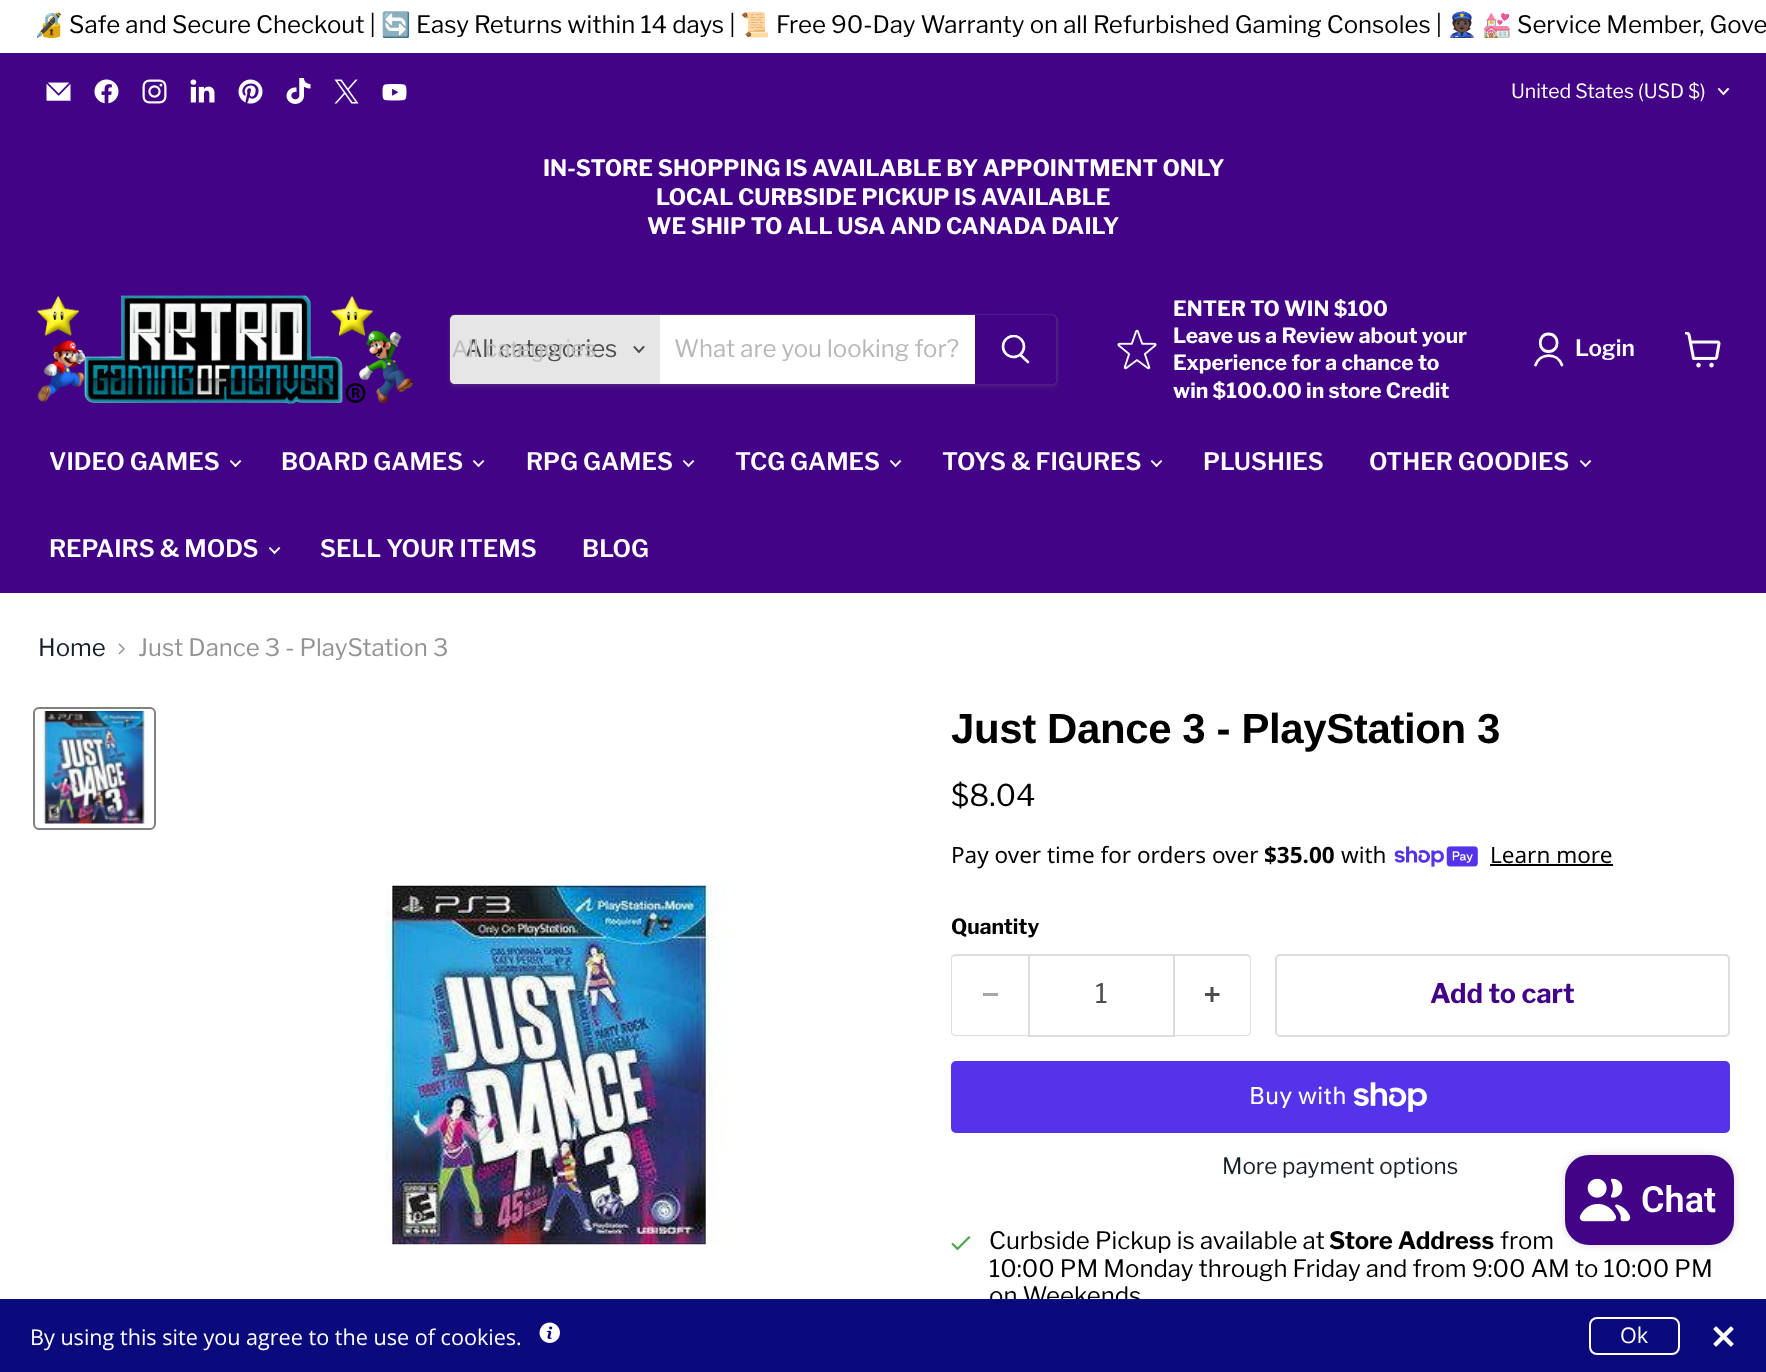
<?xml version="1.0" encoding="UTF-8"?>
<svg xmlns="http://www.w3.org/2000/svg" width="1766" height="1372">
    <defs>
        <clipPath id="clip1"><path d="M 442 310 H 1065 V 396 H 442 Z M 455 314 H 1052 C 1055.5 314 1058 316.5 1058 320 V 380 C 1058 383.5 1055.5 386 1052 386 H 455 C 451.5 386 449 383.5 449 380 V 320 C 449 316.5 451.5 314 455 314 Z" clip-rule="evenodd"/></clipPath>
        <filter id="blur1" x="-50%" y="-200%" width="200%" height="500%"><feGaussianBlur stdDeviation="2"/></filter>
        <clipPath id="clip2"><rect x="1001" y="335" width="30" height="31"/></clipPath>
        <filter id="blur2" x="-50%" y="-200%" width="200%" height="500%"><feGaussianBlur stdDeviation="4"/></filter>
    </defs>
    <rect width="100%" height="100%" fill="#FFFFFF"/>
    <text x="34" y="33" font-family="Noto Color Emoji" font-size="24" fill="#000000">🔏</text>
    <text x="69" y="33" font-family="Libre Franklin" font-size="24" fill="#000000">Safe and Secure Checkout |</text>
    <text x="381" y="33" font-family="Noto Color Emoji" font-size="24" fill="#000000">🔄</text>
    <text x="416" y="33" font-family="Libre Franklin" font-size="24" fill="#000000">Easy Returns within 14 days |</text>
    <text x="740" y="33" font-family="Noto Color Emoji" font-size="24" fill="#000000">📜</text>
    <text x="776" y="33" font-family="Libre Franklin" font-size="24" fill="#000000">Free 90-Day Warranty on all Refurbished Gaming Consoles |</text>
    <text x="1447" y="33" font-family="Noto Color Emoji" font-size="24" fill="#000000">👮🏿</text>
    <text x="1482" y="33" font-family="Noto Color Emoji" font-size="24" fill="#000000">💒</text>
    <text x="1517" y="33" font-family="Libre Franklin" font-size="24" fill="#000000">Service Member, Gove</text>
    <rect x="0" y="53" width="1766" height="540" fill="#420386"/>
    <image x="46" y="82" width="25" height="19" href="img_01.png"/>
    <image x="94" y="79" width="25" height="25" href="img_02.png"/>
    <image x="142" y="79" width="25" height="25" href="img_03.png"/>
    <image x="190" y="79" width="25" height="24" href="img_04.png"/>
    <image x="238" y="79" width="25" height="25" href="img_05.png"/>
    <image x="286" y="78" width="25" height="26" href="img_06.png"/>
    <image x="334" y="79" width="25" height="25" href="img_07.png"/>
    <image x="382" y="84" width="25" height="17" href="img_08.png"/>
    <text x="1511" y="98" font-family="Libre Franklin" font-size="19.5" fill="#FFFFFF">United States (USD $)</text>
    <path d="M 1723.5 94 L 1728 89 M 1723.5 94 L 1719 89" fill="none" stroke="#FFFFFF" stroke-width="1.9" stroke-linecap="square"/>
    <text x="543" y="176" font-family="Libre Franklin" font-size="22.5" font-weight="700" fill="#FFFFFF">IN-STORE SHOPPING IS AVAILABLE BY APPOINTMENT ONLY</text>
    <text x="656" y="205" font-family="Libre Franklin" font-size="22.5" font-weight="700" fill="#FFFFFF">LOCAL CURBSIDE PICKUP IS AVAILABLE</text>
    <text x="647" y="234" font-family="Libre Franklin" font-size="22.5" font-weight="700" fill="#FFFFFF">WE SHIP TO ALL USA AND CANADA DAILY</text>
    <image x="37" y="295" width="376" height="109" href="img_09.png"/>
    <g clip-path="url(#clip1)">
        <rect x="449" y="317" width="609" height="72" rx="6" fill="#808080" fill-opacity="0.11" filter="url(#blur1)"/>
    </g>
    <rect x="450" y="315" width="607" height="70" rx="5" fill="none" stroke="#808080" stroke-opacity="0.2" stroke-width="2"/>
    <path d="M 455 315 H 660 V 384 H 455 C 452 384 450 382 450 379 V 320 C 450 317 452 315 455 315 Z" fill="#E6E6E6"/>
    <text x="465" y="357" font-family="Libre Franklin" font-size="24" fill="#4D4D4D">All categories</text>
    <text x="452" y="357" font-family="Liberation Sans" font-size="24" fill="#BFBFBF">All categories</text>
    <path d="M 639 352 L 643.5 347 M 639 352 L 634.5 347" fill="none" stroke="#4D4D4D" stroke-width="1.9" stroke-linecap="square"/>
    <rect x="660" y="315" width="315" height="69" fill="#FFFFFF"/>
    <text x="674" y="357" font-family="Libre Franklin" font-size="24" fill="#B8B8B8">What are you looking for?</text>
    <path d="M 976 316 H 1051 C 1053 316 1055 318 1055 320 V 379 C 1055 381 1053 383 1051 383 H 976 Z" fill="#420386" stroke="#420386" stroke-width="2"/>
    <path d="M 1028 362 L 1020.5 355" fill="none" stroke="#FFFFFF" stroke-width="2.6" stroke-linecap="round"/>
    <g clip-path="url(#clip2)">
        <circle cx="1013.5" cy="346.5" r="10.5" fill="none" stroke="#FFFFFF" stroke-width="2.6"/>
    </g>
    <image x="1117" y="329" width="40" height="41" href="img_10.png"/>
    <text font-family="Libre Franklin" font-size="21" font-weight="700" fill="#FFFFFF">
        <tspan x="1173" y="316">ENTER TO WIN $100</tspan>
        <tspan x="1173" y="343">Leave us a Review about your</tspan>
        <tspan x="1173" y="370">Experience for a chance to</tspan>
        <tspan x="1173" y="398">win $100.00 in store Credit</tspan>
    </text>
    <path d="M 1548.5 351.5 C 1560 351.5 1560 334 1548.5 334 C 1537.5 334 1537.5 351.5 1548.5 351.5 Z M 1562 365 C 1557.5 352.5 1540 352.5 1535.5 365" fill="none" stroke="#FFFFFF" stroke-width="2.8" stroke-linecap="round" stroke-linejoin="round"/>
    <text x="1575" y="356" font-family="Libre Franklin" font-size="22.5" font-weight="600" fill="#FFFFFF">Login</text>
    <image x="1685" y="332" width="36" height="36" href="img_11.png"/>
    <text x="49" y="470" font-family="Libre Franklin" font-size="24" font-weight="600" fill="#FFFFFF">VIDEO GAMES</text>
    <image x="230" y="460" width="12" height="7" href="img_12.png"/>
    <text x="281" y="470" font-family="Libre Franklin" font-size="24" font-weight="600" fill="#FFFFFF">BOARD GAMES</text>
    <image x="473" y="460" width="12" height="7" href="img_12.png"/>
    <text x="526" y="470" font-family="Libre Franklin" font-size="24" font-weight="600" fill="#FFFFFF">RPG GAMES</text>
    <image x="683" y="460" width="12" height="7" href="img_12.png"/>
    <text x="735" y="470" font-family="Libre Franklin" font-size="24" font-weight="600" fill="#FFFFFF">TCG GAMES</text>
    <image x="890" y="460" width="12" height="7" href="img_12.png"/>
    <text x="942" y="470" font-family="Libre Franklin" font-size="24" font-weight="600" fill="#FFFFFF">TOYS &amp; FIGURES</text>
    <image x="1151" y="460" width="12" height="7" href="img_12.png"/>
    <text x="1203" y="470" font-family="Libre Franklin" font-size="24" font-weight="600" fill="#FFFFFF">PLUSHIES</text>
    <text x="1369" y="470" font-family="Libre Franklin" font-size="24" font-weight="600" fill="#FFFFFF">OTHER GOODIES</text>
    <image x="1580" y="460" width="12" height="7" href="img_12.png"/>
    <text x="49" y="557" font-family="Libre Franklin" font-size="24" font-weight="600" fill="#FFFFFF">REPAIRS &amp; MODS</text>
    <image x="269" y="547" width="12" height="7" href="img_12.png"/>
    <text x="320" y="557" font-family="Libre Franklin" font-size="24" font-weight="600" fill="#FFFFFF">SELL YOUR ITEMS</text>
    <text x="582" y="557" font-family="Libre Franklin" font-size="24" font-weight="600" fill="#FFFFFF">BLOG</text>
    <text x="38" y="656" font-family="Libre Franklin" font-size="24" fill="#171F2B">Home</text>
    <image x="118" y="643" width="7" height="12" href="img_13.png"/>
    <text x="138" y="656" font-family="Libre Franklin" font-size="24" fill="#949494">Just Dance 3 - PlayStation 3</text>
    <rect x="34" y="708" width="121" height="121" rx="5" fill="none" stroke="#818181" stroke-width="2"/>
    <image x="37" y="711" width="111" height="113" href="img_14.png"/>
    <image x="385" y="885" width="342" height="360" href="img_15.png"/>
    <text x="951" y="743" font-family="Arimo" font-size="42" font-weight="700" letter-spacing="-0.4" fill="#000000">Just Dance 3 - PlayStation 3</text>
    <text x="951" y="806" font-family="Libre Franklin" font-size="30" fill="#000000">$8.04</text>
    <text x="951" y="863" font-family="Noto Sans" font-size="22.5" fill="#000000">Pay over time for orders over</text>
    <text x="1264" y="863" font-family="Noto Sans" font-size="22.5" font-weight="700" fill="#000000">$35.00</text>
    <text x="1341" y="863" font-family="Noto Sans" font-size="22.5" fill="#000000">with</text>
    <image x="1394" y="846" width="84" height="21" href="img_16.png"/>
    <text x="1490" y="863" font-family="Noto Sans" font-size="22.5" fill="#000000">Learn more</text>
    <rect x="1490" y="864" width="123" height="2" fill="#000000"/>
    <text x="951" y="934" font-family="Libre Franklin" font-size="21" font-weight="700" fill="#000000">Quantity</text>
    <path d="M 956 954 H 1028 V 1036 H 956 C 953 1036 951 1034 951 1032 V 958 C 951 956 953 954 956 954 Z M 956 956 H 1028 V 1035 H 956 C 954 1035 952 1034 952 1032 V 958 C 952 957 954 956 956 956 Z" fill="#DDDDDD" fill-rule="evenodd"/>
    <rect x="983" y="993" width="15" height="3" fill="#A6A6A6"/>
    <rect x="1029" y="955" width="145" height="81" fill="none" stroke="#DDDDDD" stroke-width="2"/>
    <text x="1095" y="1003" font-family="Libre Franklin" font-size="27" fill="#4D4D4D">1</text>
    <path d="M 1174 954 H 1246 C 1249 954 1251 956 1251 958 V 1032 C 1251 1034 1249 1036 1246 1036 H 1174 Z M 1174 956 H 1246 C 1248 956 1250 957 1250 958 V 1032 C 1250 1034 1248 1035 1246 1035 H 1174 Z" fill="#DDDDDD" fill-rule="evenodd"/>
    <image x="1205" y="987" width="15" height="15" href="img_17.png"/>
    <rect x="1276" y="955" width="453" height="81" rx="4" fill="none" stroke="#DDDDDD" stroke-width="2"/>
    <text x="1430" y="1003" font-family="Libre Franklin" font-size="27" font-weight="700" fill="#420386">Add to cart</text>
    <rect x="951" y="1061" width="779" height="72" rx="5" fill="#5433EB"/>
    <text x="1249" y="1104" font-family="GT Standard" font-size="24" fill="#FFFFFF">Buy with</text>
    <image x="1353" y="1082" width="74" height="30" href="img_18.png"/>
    <text x="1222" y="1174" font-family="Libre Franklin" font-size="22.5" fill="#171F2B">More payment options</text>
    <image x="951" y="1236" width="20" height="15" href="img_19.png"/>
    <text x="989" y="1249" font-family="Libre Franklin" font-size="24" fill="#000000">Curbside Pickup is available at</text>
    <text x="1329" y="1249" font-family="Libre Franklin" font-size="24" font-weight="700" fill="#000000">Store Address</text>
    <text x="1500" y="1249" font-family="Libre Franklin" font-size="24" fill="#000000">from</text>
    <text font-family="Libre Franklin" font-size="24" fill="#000000">
        <tspan x="989" y="1277">10:00 PM Monday through Friday and from 9:00 AM to 10:00 PM</tspan>
        <tspan x="989" y="1304">on Weekends</tspan>
    </text>
    <rect x="1565" y="1155" width="169" height="90" rx="24" fill="#000000" fill-opacity="0.15" filter="url(#blur2)"/>
    <rect x="1565" y="1155" width="169" height="90" rx="24" fill="#420386"/>
    <image x="1579" y="1178" width="52" height="44" href="img_20.png"/>
    <text x="1641" y="1212" font-family="Roboto" font-size="36" font-weight="600" fill="#FFFFFF">Chat</text>
    <rect x="0" y="1299" width="1766" height="73" fill="#0A0A7D"/>
    <text x="30" y="1345" font-family="Open Sans" font-size="21.6" fill="#FFFFFF">By using this site you agree to the use of cookies.</text>
    <image x="539" y="1322" width="21" height="21" href="img_21.png"/>
    <rect x="1590" y="1318" width="89" height="36" rx="7" fill="none" stroke="#FFFFFF" stroke-width="2"/>
    <text x="1620" y="1343" font-family="Open Sans" font-size="21.6" fill="#FFFFFF">Ok</text>
    <image x="1713" y="1326" width="21" height="21" href="img_22.png"/>
</svg>
